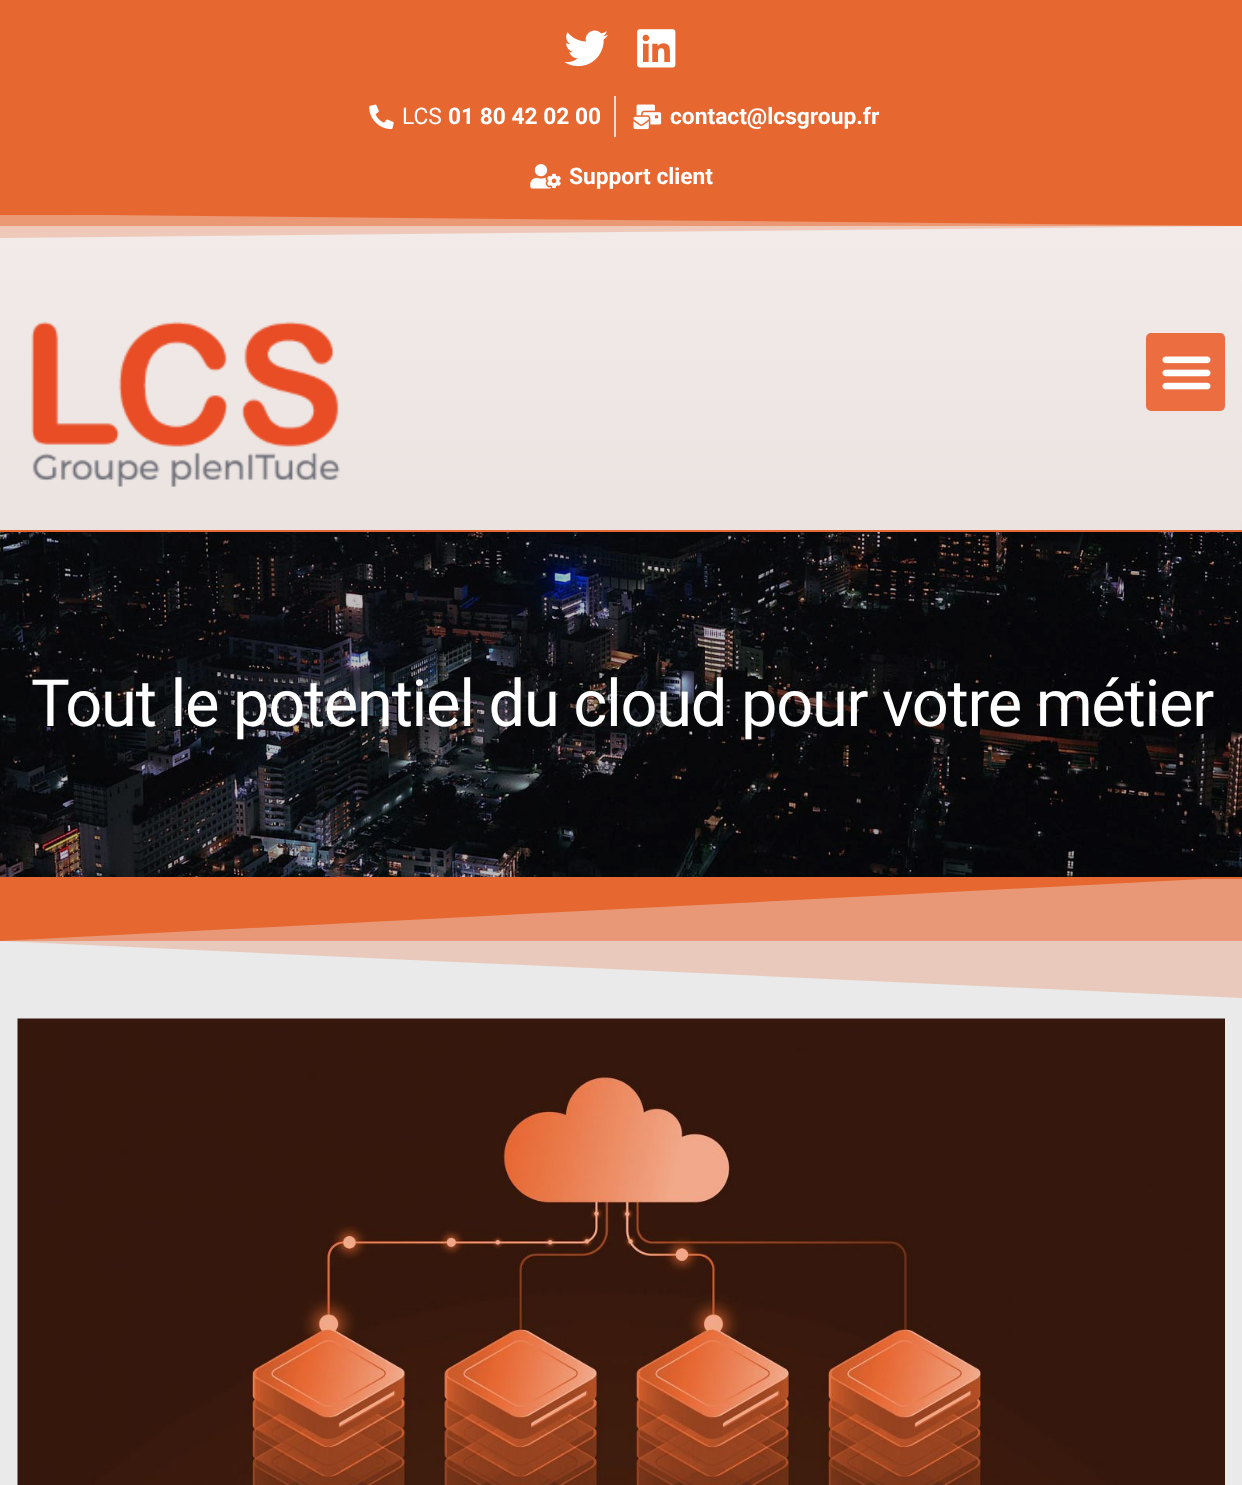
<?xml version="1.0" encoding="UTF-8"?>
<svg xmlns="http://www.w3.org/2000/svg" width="1242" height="1485">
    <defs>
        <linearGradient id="g1" gradientUnits="userSpaceOnUse" x1="621" y1="215" x2="621" y2="530"><stop offset="0" stop-color="#F2EBE9"/><stop offset="1" stop-color="#EAE3E0"/></linearGradient>
        <linearGradient id="g2" gradientUnits="userSpaceOnUse" x1="621" y1="215" x2="621" y2="530"><stop offset="0" stop-color="#EDA98D"/><stop offset="1" stop-color="#E9A589"/></linearGradient>
    </defs>
    <rect width="100%" height="100%" fill="#E76731"/>
    <image x="564" y="30" width="44" height="37" href="img_01.png"/>
    <image x="637" y="29" width="39" height="39" href="img_02.png"/>
    <image x="369" y="104" width="25" height="26" href="img_03.png"/>
    <text x="402" y="124" font-family="Roboto" font-size="22.75" fill="#FFFFFF">LCS</text>
    <text x="448" y="124" font-family="Roboto" font-size="22.75" font-weight="700" fill="#FFFFFF">01 80 42 02 00</text>
    <rect x="614" y="96" width="2" height="41" fill="#DDDDDD"/>
    <image x="633" y="104" width="29" height="26" href="img_04.png"/>
    <text x="670" y="124" font-family="Roboto" font-size="22.75" font-weight="700" fill="#FFFFFF">contact@lcsgroup.fr</text>
    <image x="530" y="164" width="31" height="25" href="img_05.png"/>
    <text x="569" y="184" font-family="Roboto" font-size="22.75" font-weight="700" fill="#FFFFFF">Support client</text>
    <rect x="0" y="226" width="1242" height="304" fill="url(#g1)"/>
    <rect x="0" y="215" width="1241" height="11" fill="url(#g2)"/>
    <path d="M -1 214 H 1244 V 226 Z" fill="#E76731"/>
    <path d="M 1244 214 H -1 V 238 L 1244 226 Z" fill="#E76731" fill-opacity="0.25"/>
    <image x="31" y="321" width="309" height="166" href="img_06.png"/>
    <rect x="1146" y="333" width="79" height="78" rx="5" fill="#EC6D40"/>
    <image x="1162" y="356" width="49" height="34" href="img_07.png"/>
    <image x="0" y="532" width="1242" height="345" href="img_08.png"/>
    <text x="31" y="726" font-family="Roboto" font-size="65" letter-spacing="-1.3" fill="#FFFFFF">Tout le potentiel du cloud pour votre métier</text>
    <rect x="0" y="879" width="1242" height="606" fill="#EAEAEA"/>
    <path d="M 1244 877 H -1 V 941 Z" fill="#E76731"/>
    <rect x="0" y="879" width="1242" height="62" fill="#E76731" fill-opacity="0.5"/>
    <path d="M -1 877 H 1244 V 998 L -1 941 Z" fill="#E76731" fill-opacity="0.25"/>
    <image x="17" y="1018" width="1208" height="467" href="img_09.png"/>
</svg>
